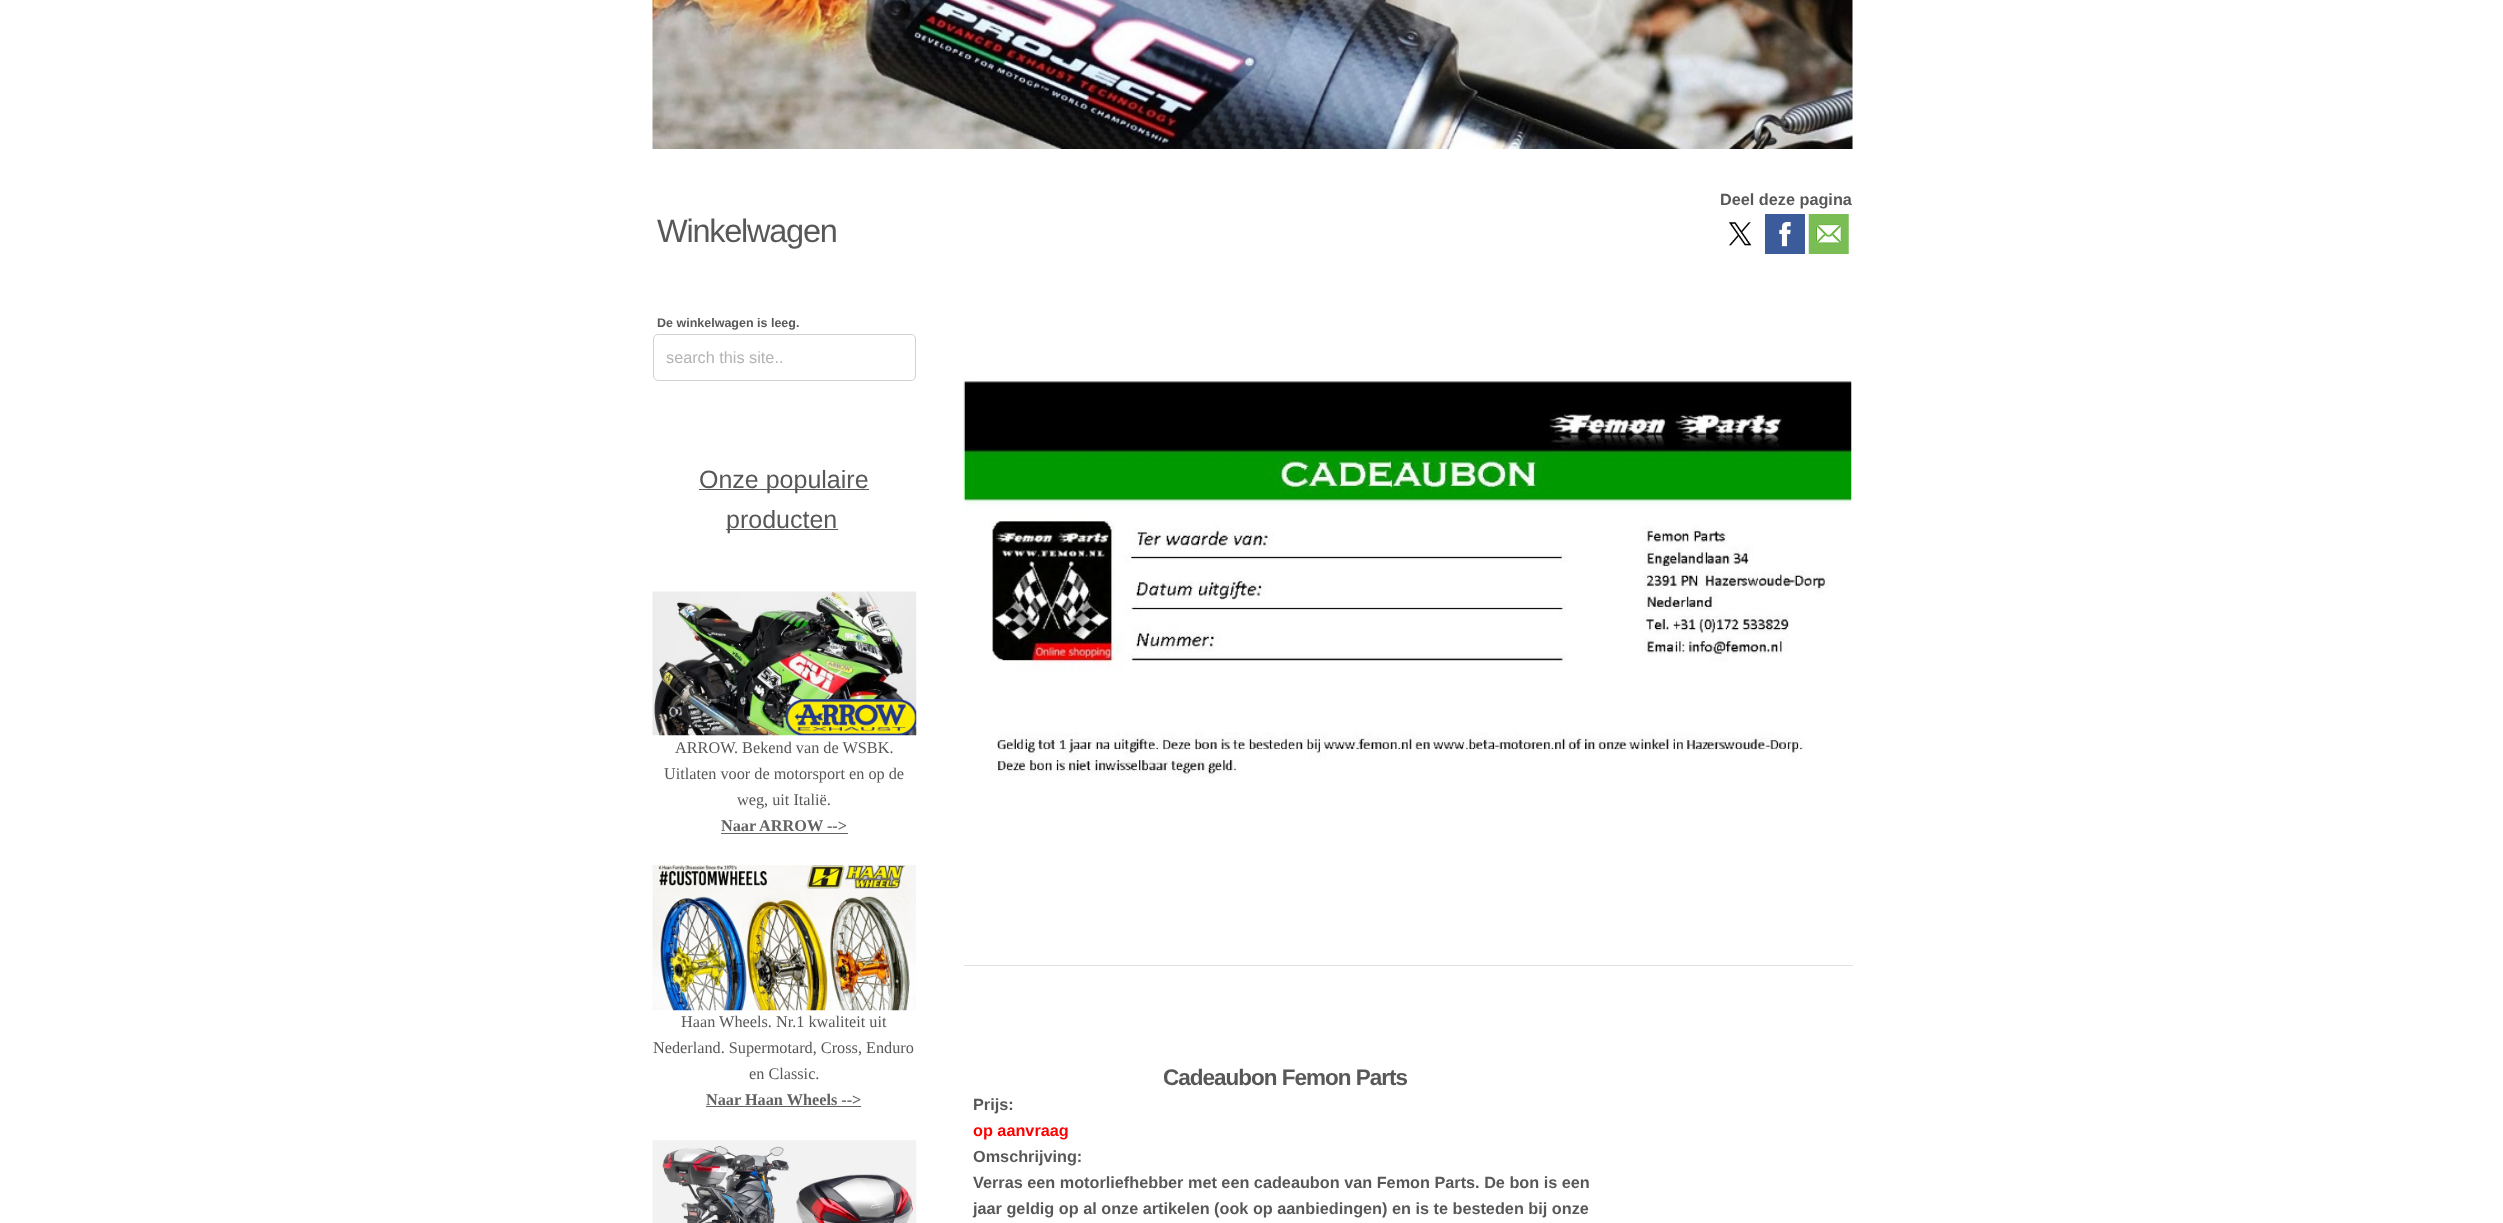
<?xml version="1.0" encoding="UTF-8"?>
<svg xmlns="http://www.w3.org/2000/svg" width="2503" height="1223">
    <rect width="100%" height="100%" fill="#FFFFFF"/>
    <image x="652" y="0" width="1201" height="149" href="img_01.png"/>
    <text x="657" y="242" font-family="Liberation Sans" font-size="32.5" letter-spacing="-1.25" fill="#585858">Winkelwagen</text>
    <text x="657" y="327" font-family="Liberation Sans" font-size="12.5" font-weight="700" fill="#585858">De winkelwagen is leeg.</text>
    <rect x="653.5" y="334.5" width="262" height="46" rx="4.5" fill="none" stroke="#D1D1D1"/>
    <text x="666" y="363" font-family="Liberation Sans" font-size="16.25" fill="#B3B3B3">search this site..</text>
    <rect x="699" y="489" width="170" height="1" fill="#585858"/>
    <text x="699" y="488" font-family="Liberation Sans" font-size="25" fill="#585858">Onze populaire</text>
    <rect x="726" y="529" width="112" height="1" fill="#585858"/>
    <text x="726" y="528" font-family="Liberation Sans" font-size="25" fill="#585858">producten</text>
    <image x="652" y="591" width="265" height="145" href="img_02.png"/>
    <text x="675" y="753" font-family="Liberation Serif" font-size="16.25" fill="#585858">ARROW. Bekend van de WSBK.</text>
    <text x="664" y="779" font-family="Liberation Serif" font-size="16.25" fill="#585858">Uitlaten voor de motorsport en op de</text>
    <text x="737" y="805" font-family="Liberation Serif" font-size="16.25" fill="#585858">weg, uit Italië.</text>
    <text x="721" y="831" font-family="Liberation Serif" font-size="16.25" font-weight="700" fill="#626262">Naar ARROW --&gt;</text>
    <rect x="721" y="833" width="127" height="1" fill="#626262"/>
    <image x="652" y="865" width="264" height="146" href="img_03.png"/>
    <text x="681" y="1027" font-family="Liberation Serif" font-size="16.25" fill="#585858">Haan Wheels. Nr.1 kwaliteit uit</text>
    <text x="653" y="1053" font-family="Liberation Serif" font-size="16.25" fill="#585858">Nederland. Supermotard, Cross, Enduro</text>
    <text x="749" y="1079" font-family="Liberation Serif" font-size="16.25" fill="#585858">en Classic.</text>
    <text x="706" y="1105" font-family="Liberation Serif" font-size="16.25" font-weight="700" fill="#626262">Naar Haan Wheels --&gt;</text>
    <rect x="706" y="1106" width="155" height="1" fill="#626262"/>
    <image x="652" y="1140" width="265" height="83" href="img_04.png"/>
    <text x="1720" y="205" font-family="Liberation Sans" font-size="16.25" font-weight="700" fill="#585858">Deel deze pagina</text>
    <image x="1728" y="222" width="24" height="24" href="img_05.png"/>
    <image x="1765" y="214" width="40" height="40" href="img_06.png"/>
    <image x="1808" y="214" width="41" height="40" href="img_07.png"/>
    <image x="963" y="378" width="889" height="399" href="img_08.png"/>
    <rect x="964" y="965" width="889" height="1" fill="#E1E1E1"/>
    <text x="1163" y="1085" font-family="Liberation Sans" font-size="22.5" font-weight="700" letter-spacing="-1" fill="#585858">Cadeaubon Femon Parts</text>
    <text x="973" y="1110" font-family="Liberation Sans" font-size="16.25" font-weight="700" fill="#585858">Prijs:</text>
    <text x="973" y="1136" font-family="Liberation Sans" font-size="16.25" font-weight="700" fill="#FF0000">op aanvraag</text>
    <text font-family="Liberation Sans" font-size="16.25" font-weight="700" fill="#585858">
        <tspan x="973" y="1162">Omschrijving:</tspan>
        <tspan x="973" y="1188">Verras een motorliefhebber met een cadeaubon van Femon Parts. De bon is een</tspan>
        <tspan x="973" y="1214">jaar geldig op al onze artikelen (ook op aanbiedingen) en is te besteden bij onze</tspan>
    </text>
</svg>
